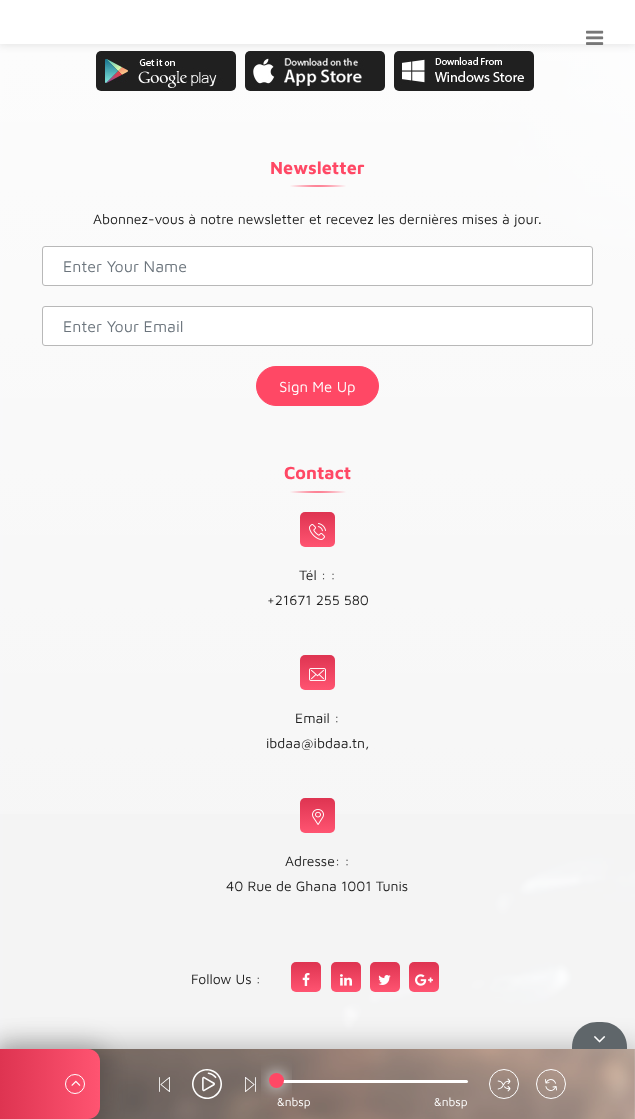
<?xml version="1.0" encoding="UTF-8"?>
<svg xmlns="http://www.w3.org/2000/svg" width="635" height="1119">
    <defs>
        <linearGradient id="g1" gradientUnits="userSpaceOnUse" x1="317" y1="-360" x2="318" y2="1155"><stop offset="0" stop-color="#FFFFFF"/><stop offset="1" stop-color="#FFFFFF" stop-opacity="0"/></linearGradient>
        <filter id="blur1" x="-50%" y="-200%" width="200%" height="500%"><feGaussianBlur stdDeviation="4.5"/></filter>
        <radialGradient id="g2" gradientUnits="userSpaceOnUse" cx="0" cy="0" r="1" gradientTransform="matrix(50 0 0 2.5 318 186)"><stop offset="0" stop-color="#FF4865"/><stop offset="0.6" stop-color="#FBFBFB"/></radialGradient>
        <radialGradient id="g3" gradientUnits="userSpaceOnUse" cx="0" cy="0" r="1" gradientTransform="matrix(50 0 0 2.5 318 492)"><stop offset="0" stop-color="#FF4865"/><stop offset="0.6" stop-color="#F9F9F9"/></radialGradient>
        <linearGradient id="g4" gradientUnits="userSpaceOnUse" x1="318" y1="547" x2="318" y2="512"><stop offset="0" stop-color="#3BC8E7"/><stop offset="0" stop-color="#FF5471"/><stop offset="1" stop-color="#DE3451"/></linearGradient>
        <linearGradient id="g5" gradientUnits="userSpaceOnUse" x1="318" y1="690" x2="318" y2="655"><stop offset="0" stop-color="#3BC8E7"/><stop offset="0" stop-color="#FF5471"/><stop offset="1" stop-color="#DE3451"/></linearGradient>
        <linearGradient id="g6" gradientUnits="userSpaceOnUse" x1="318" y1="833" x2="318" y2="798"><stop offset="0" stop-color="#3BC8E7"/><stop offset="0" stop-color="#FF5471"/><stop offset="1" stop-color="#DE3451"/></linearGradient>
        <linearGradient id="g7" gradientUnits="userSpaceOnUse" x1="306" y1="992" x2="306" y2="962"><stop offset="0" stop-color="#3BC8E7"/><stop offset="0" stop-color="#FF5471"/><stop offset="1" stop-color="#DE3451"/></linearGradient>
        <linearGradient id="g8" gradientUnits="userSpaceOnUse" x1="346" y1="992" x2="346" y2="962"><stop offset="0" stop-color="#3BC8E7"/><stop offset="0" stop-color="#FF5471"/><stop offset="1" stop-color="#DE3451"/></linearGradient>
        <linearGradient id="g9" gradientUnits="userSpaceOnUse" x1="385" y1="992" x2="385" y2="962"><stop offset="0" stop-color="#3BC8E7"/><stop offset="0" stop-color="#FF5471"/><stop offset="1" stop-color="#DE3451"/></linearGradient>
        <linearGradient id="g10" gradientUnits="userSpaceOnUse" x1="424" y1="992" x2="424" y2="962"><stop offset="0" stop-color="#3BC8E7"/><stop offset="0" stop-color="#FF5471"/><stop offset="1" stop-color="#DE3451"/></linearGradient>
        <filter id="blur2" x="-50%" y="-200%" width="200%" height="500%"><feGaussianBlur stdDeviation="12"/></filter>
        <linearGradient id="g11" gradientUnits="userSpaceOnUse" x1="100" y1="1084" x2="0" y2="1084"><stop offset="0" stop-color="#ED3FB3"/><stop offset="0" stop-color="#3BC8E7"/><stop offset="0" stop-color="#FF5471"/><stop offset="1" stop-color="#DE3451"/></linearGradient>
        <filter id="blur3" x="-50%" y="-200%" width="200%" height="500%"><feGaussianBlur stdDeviation="7.5"/></filter>
    </defs>
    <rect width="100%" height="100%" fill="#FFFFFF"/>
    <image x="0" y="44" width="635" height="1075" href="img_02.png"/>
    <rect x="0" y="44" width="635" height="770" fill="url(#g1)"/>
    <image x="96" y="51" width="140" height="40" href="img_03.png"/>
    <image x="245" y="51" width="140" height="40" href="img_04.png"/>
    <image x="394" y="51" width="140" height="40" href="img_05.png"/>
    <rect x="-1" y="-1" width="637" height="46" fill="#040404" fill-opacity="0.1" filter="url(#blur1)"/>
    <rect x="0" y="0" width="635" height="44" fill="#FFFFFF"/>
    <image x="586" y="30" width="18" height="15" href="img_01.png"/>
    <text x="270" y="174" font-family="Maven Pro" font-size="18" font-weight="700" fill="#FF4865">Newsletter</text>
    <rect x="290" y="185" width="56" height="2" fill="url(#g2)"/>
    <text x="93" y="224" font-family="Maven Pro" font-size="14" fill="#202020">Abonnez-vous à notre newsletter et recevez les dernières mises à jour.</text>
    <rect x="42.5" y="246.5" width="550" height="39" rx="2.5" fill="#FFFFFF" stroke="#B8B8B8"/>
    <text x="63" y="272" font-family="Maven Pro" font-size="16" fill="#6C757D">Enter Your Name</text>
    <rect x="42.5" y="306.5" width="550" height="39" rx="2.5" fill="#FFFFFF" stroke="#B8B8B8"/>
    <text x="63" y="332" font-family="Maven Pro" font-size="16" fill="#6C757D">Enter Your Email</text>
    <rect x="256.5" y="366.5" width="122" height="39" rx="19.5" fill="#FF4865" stroke="#FF4865"/>
    <text x="279" y="392" font-family="Maven Pro" font-size="15" fill="#FFFFFF">Sign Me Up</text>
    <text x="284" y="479" font-family="Maven Pro" font-size="18" font-weight="700" fill="#FF4865">Contact</text>
    <rect x="290" y="491" width="56" height="2" fill="url(#g3)"/>
    <rect x="300" y="512" width="35" height="35" rx="5" fill="url(#g4)"/>
    <image x="309" y="523" width="17" height="17" href="img_06.png"/>
    <text x="299" y="580" font-family="Maven Pro" font-size="14" fill="#202020">Tél : :</text>
    <text x="267" y="605" font-family="Maven Pro" font-size="14" fill="#202020">+21671 255 580</text>
    <rect x="300" y="655" width="35" height="35" rx="5" fill="url(#g5)"/>
    <image x="309" y="668" width="17" height="13" href="img_07.png"/>
    <text x="295" y="723" font-family="Maven Pro" font-size="14" fill="#202020">Email :</text>
    <text x="266" y="748" font-family="Maven Pro" font-size="14" fill="#202020">ibdaa@ibdaa.tn,</text>
    <rect x="300" y="798" width="35" height="35" rx="5" fill="url(#g6)"/>
    <image x="312" y="809" width="12" height="16" href="img_08.png"/>
    <text x="285" y="866" font-family="Maven Pro" font-size="14" fill="#202020">Adresse: :</text>
    <text x="226" y="891" font-family="Maven Pro" font-size="14" fill="#202020">40 Rue de Ghana 1001 Tunis</text>
    <text x="191" y="984" font-family="Maven Pro" font-size="14" fill="#202020">Follow Us :</text>
    <rect x="291" y="962" width="30" height="30" rx="5" fill="url(#g7)"/>
    <image x="302" y="973" width="8" height="13" href="img_09.png"/>
    <rect x="331" y="962" width="30" height="30" rx="5" fill="url(#g8)"/>
    <image x="340" y="974" width="12" height="12" href="img_10.png"/>
    <rect x="370" y="962" width="30" height="30" rx="5" fill="url(#g9)"/>
    <image x="378" y="975" width="13" height="10" href="img_11.png"/>
    <rect x="409" y="962" width="30" height="30" rx="5" fill="url(#g10)"/>
    <image x="415" y="974" width="18" height="12" href="img_12.png"/>
    <rect x="-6" y="1043" width="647" height="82" fill="#040404" fill-opacity="0.2" filter="url(#blur2)"/>
    <image x="88" y="1049" width="547" height="70" href="img_13.png"/>
    <path d="M 597 1022 H 602 C 616 1022 627 1033 627 1047 V 1049 H 572 V 1047 C 572 1033 583 1022 597 1022 Z" fill="#5F666A"/>
    <image x="594" y="1036" width="12" height="7" href="img_14.png"/>
    <rect x="88" y="1049" width="547" height="70" fill="#DBDBDB" fill-opacity="0.3"/>
    <rect x="-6" y="1043" width="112" height="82" rx="18" fill="#040404" fill-opacity="0.2" filter="url(#blur2)"/>
    <path d="M 0 1049 H 88 C 94.5 1049 100 1054.5 100 1061 V 1107 C 100 1113.5 94.5 1119 88 1119 H 0 Z" fill="url(#g11)"/>
    <circle cx="75" cy="1084" r="9.5" fill="none" stroke="#FFFFFF"/>
    <image x="71" y="1080" width="10" height="6" href="img_15.png"/>
    <image x="159" y="1077" width="11" height="15" href="img_16.png"/>
    <image x="192" y="1069" width="30" height="30" href="img_17.png"/>
    <image x="245" y="1077" width="11" height="15" href="img_18.png"/>
    <image x="497" y="1078" width="14" height="14" href="img_19.png"/>
    <circle cx="504" cy="1084" r="14.5" fill="none" stroke="#FFFFFF"/>
    <image x="545" y="1079" width="12" height="12" href="img_20.png"/>
    <circle cx="551" cy="1084" r="14.5" fill="none" stroke="#FFFFFF"/>
    <rect x="277" y="1080" width="191" height="3" rx="1.5" fill="#FFFFFF"/>
    <rect x="269" y="1073" width="15" height="15" rx="7.5" fill="#FFFFFF" filter="url(#blur3)"/>
    <circle cx="276.5" cy="1080.5" r="7.5" fill="#FF4865"/>
    <text x="277" y="1106" font-family="Maven Pro" font-size="12" fill="#FFFFFF">&amp;nbsp</text>
    <text x="434" y="1106" font-family="Maven Pro" font-size="12" fill="#FFFFFF">&amp;nbsp</text>
</svg>
